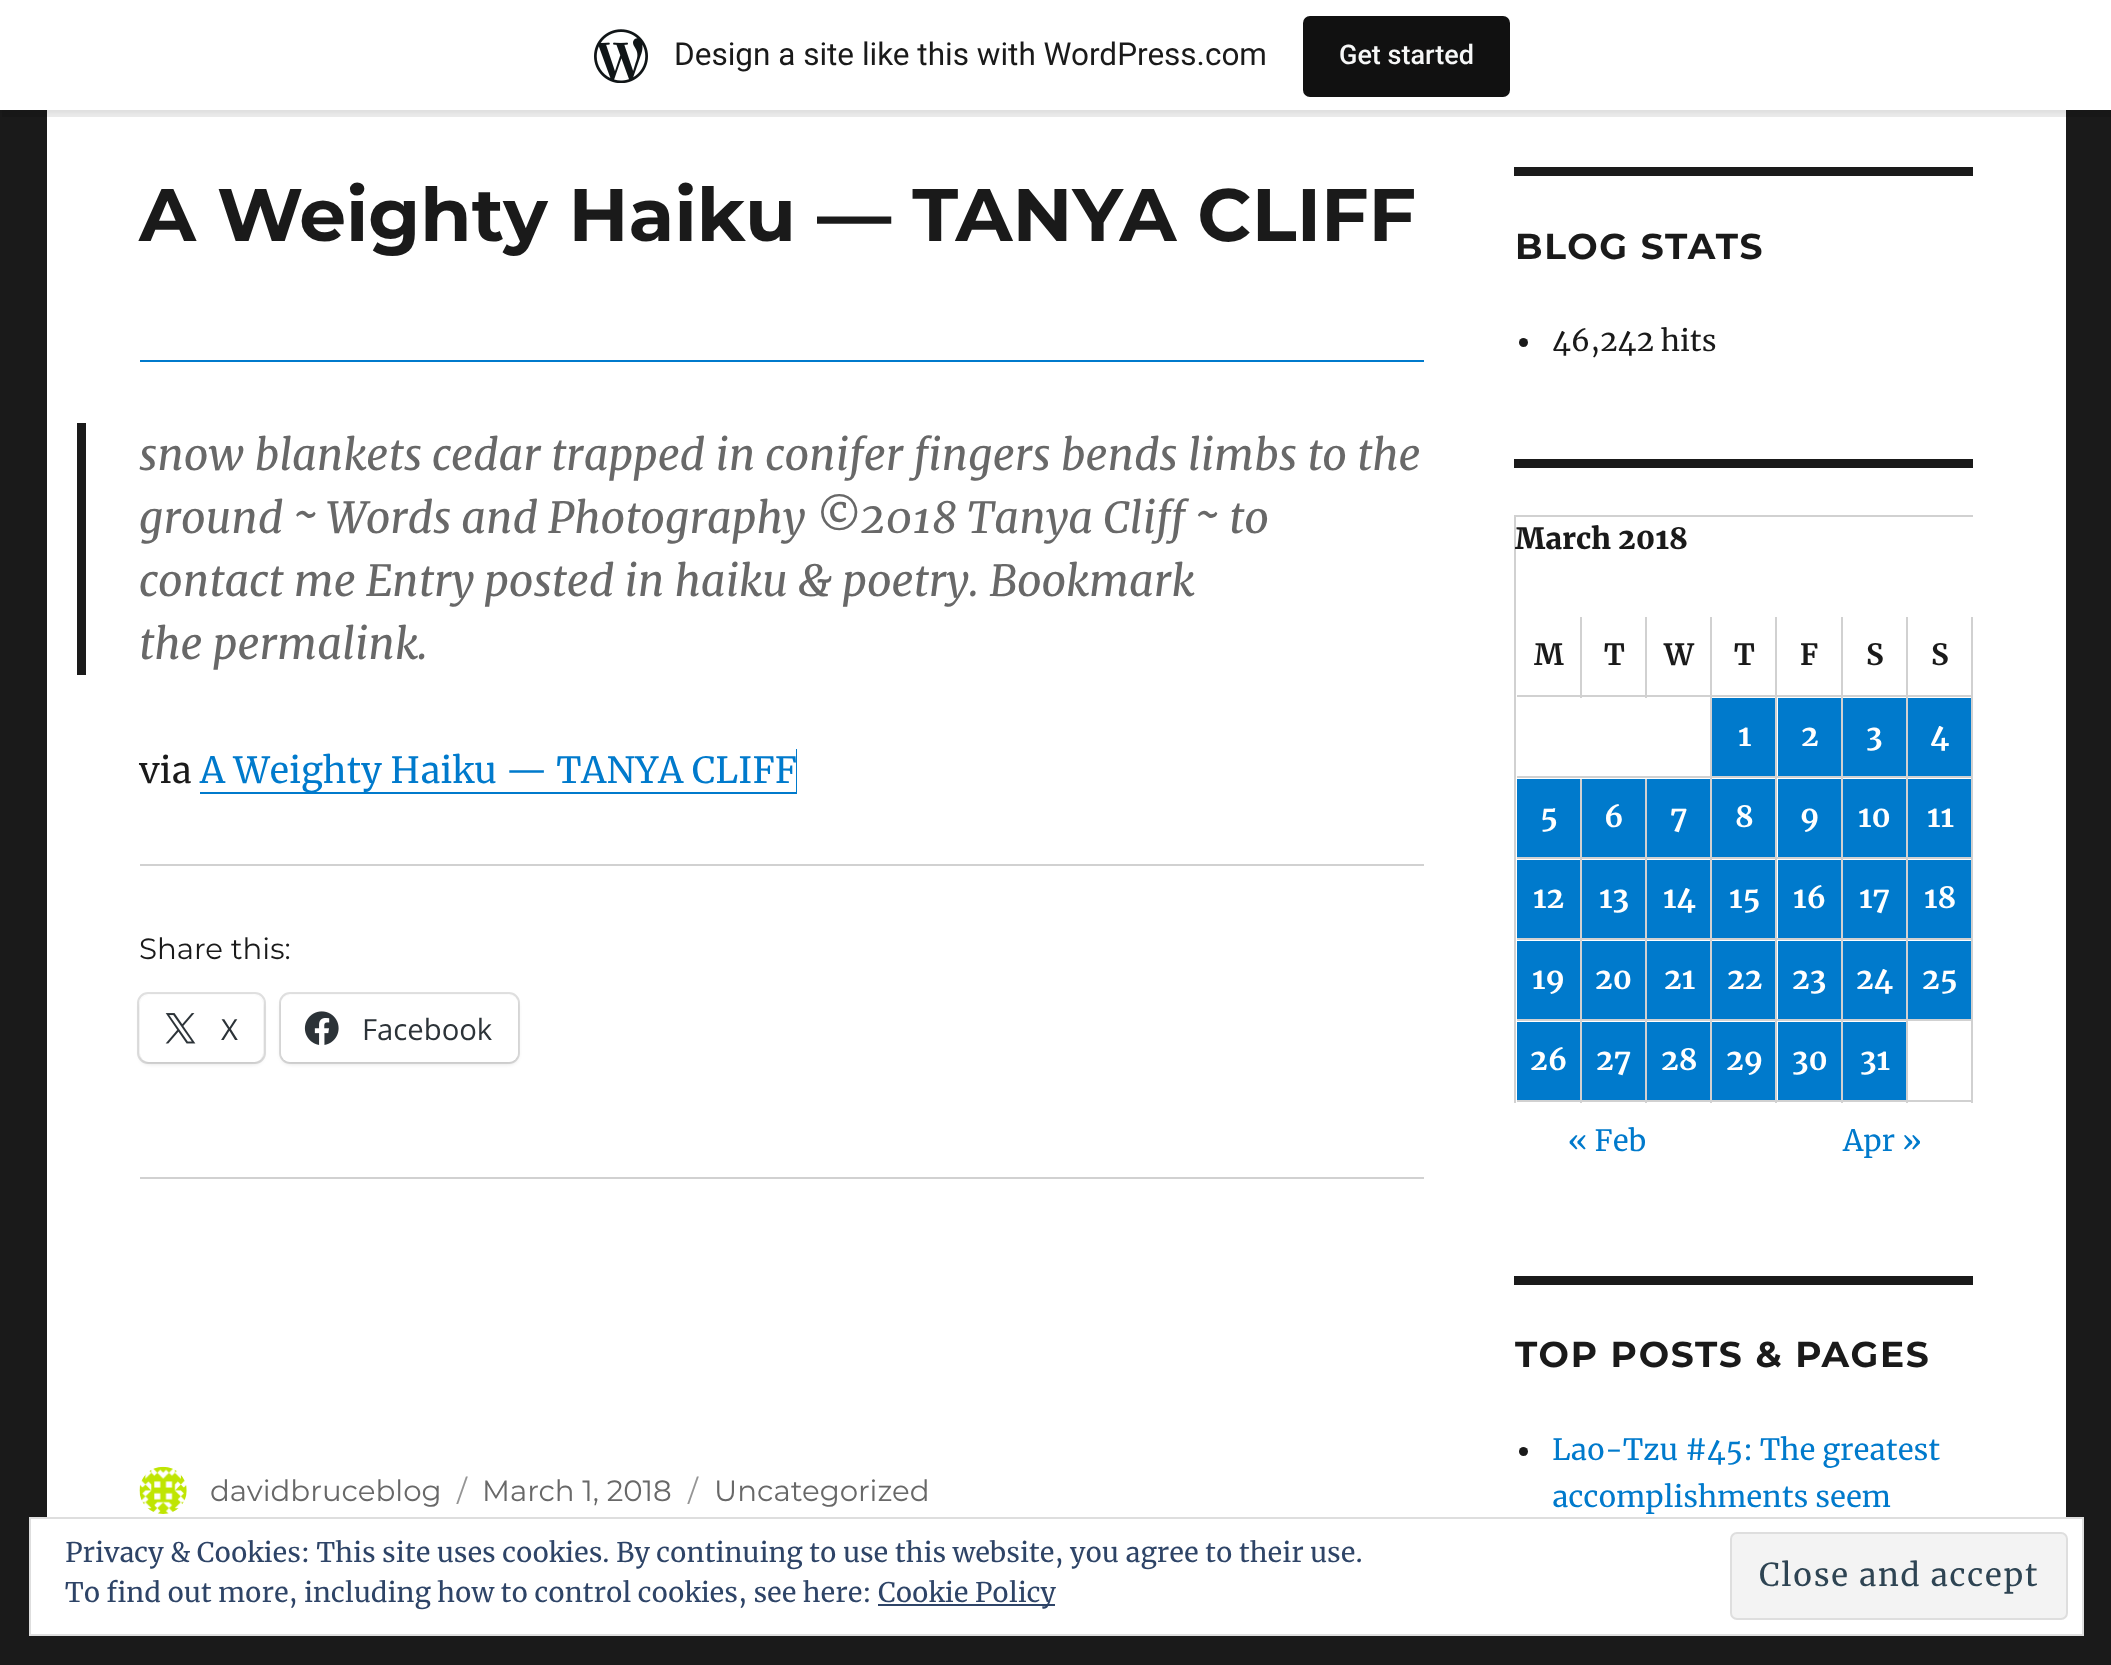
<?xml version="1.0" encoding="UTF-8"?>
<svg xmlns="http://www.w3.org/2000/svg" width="2111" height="1665">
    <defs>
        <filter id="blur1" x="-50%" y="-200%" width="200%" height="500%"><feGaussianBlur stdDeviation="2"/></filter>
    </defs>
    <rect width="100%" height="100%" fill="#1A1A1A"/>
    <rect x="47" y="110" width="2019" height="1407" fill="#FFFFFF"/>
    <rect x="0" y="2" width="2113" height="111" fill="#000000" fill-opacity="0.05" filter="url(#blur1)"/>
    <path d="M 2 110 V 117 H 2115 V 7 H 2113 V 110 Z" fill="#000000" fill-opacity="0.08"/>
    <rect x="0" y="0" width="2111" height="110" fill="#FFFFFF"/>
    <image x="594" y="29" width="54" height="54" href="img_01.png"/>
    <text x="674" y="65" font-family="Roboto" font-size="31.5" fill="#1A1A1A">Design a site like this with WordPress.com</text>
    <rect x="1303" y="16" width="207" height="81" rx="7" fill="#111111"/>
    <text x="1339" y="64" font-family="Roboto" font-size="27" font-weight="500" fill="#F6F7F7">Get started</text>
    <text x="139" y="241" font-family="Montserrat" font-size="74.25" font-weight="100" fill="#1A1A1A">A Weighty Haiku — TANYA CLIFF</text>
    <rect x="140" y="360" width="1284" height="2" fill="#007ACC"/>
    <rect x="77" y="423" width="9" height="252" fill="#1A1A1A"/>
    <text font-family="Merriweather" font-size="42.75" font-style="italic" fill="#686868">
        <tspan x="139" y="470">snow blankets cedar trapped in conifer fingers bends limbs to the</tspan>
        <tspan x="139" y="533">ground ~ Words and Photography ©2018 Tanya Cliff ~ to</tspan>
        <tspan x="139" y="596">contact me Entry posted in haiku &amp; poetry. Bookmark</tspan>
        <tspan x="139" y="659">the permalink.</tspan>
    </text>
    <text x="139" y="783" font-family="Merriweather" font-size="36" fill="#1A1A1A">via</text>
    <path d="M 200 749 V 794 H 797 V 749 H 796 V 792 H 200 Z" fill="#007ACC"/>
    <text x="200" y="783" font-family="Merriweather" font-size="36" fill="#007ACC">A Weighty Haiku — TANYA CLIFF</text>
    <rect x="140" y="864" width="1284" height="2" fill="#D1D1D1"/>
    <text x="139" y="959" font-family="'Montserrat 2'" font-size="29.25" font-weight="100" fill="#1A1A1A">Share this:</text>
    <rect x="138" y="993" width="127" height="70" rx="10" fill="none" stroke="#E0E0E0" stroke-width="2"/>
    <rect x="140" y="997" width="123" height="67" rx="9" fill="#000000" fill-opacity="0.12" filter="url(#blur1)"/>
    <rect x="140" y="995" width="123" height="67" rx="9" fill="#FFFFFF"/>
    <image x="165" y="1013" width="31" height="31" href="img_02.png"/>
    <text x="221" y="1040" font-family="Open Sans" font-size="29.25" fill="#2C3338">X</text>
    <rect x="280" y="993" width="239" height="70" rx="10" fill="none" stroke="#E0E0E0" stroke-width="2"/>
    <rect x="281" y="997" width="237" height="67" rx="9" fill="#000000" fill-opacity="0.12" filter="url(#blur1)"/>
    <rect x="281" y="995" width="237" height="67" rx="9" fill="#FFFFFF"/>
    <image x="304" y="1011" width="35" height="34" href="img_03.png"/>
    <text x="362" y="1040" font-family="Open Sans" font-size="29.25" fill="#2C3338">Facebook</text>
    <rect x="140" y="1177" width="1284" height="2" fill="#D1D1D1"/>
    <image x="139" y="1466" width="48" height="48" href="img_04.png"/>
    <text x="210" y="1501" font-family="'Montserrat 2'" font-size="29.25" font-weight="100" fill="#686868">davidbruceblog</text>
    <text x="457" y="1501" font-family="'Montserrat 2'" font-size="29.25" font-weight="100" fill="#959595">/</text>
    <text x="482" y="1501" font-family="'Montserrat 2'" font-size="29.25" font-weight="100" fill="#686868">March 1, 2018</text>
    <text x="688" y="1501" font-family="'Montserrat 2'" font-size="29.25" font-weight="100" fill="#959595">/</text>
    <text x="714" y="1501" font-family="'Montserrat 2'" font-size="29.25" font-weight="100" fill="#686868">Uncategorized</text>
    <rect x="1514" y="167" width="459" height="9" fill="#1A1A1A"/>
    <text x="1515" y="259" font-family="Montserrat" font-size="36" font-weight="100" letter-spacing="1.7" fill="#1A1A1A">BLOG STATS</text>
    <circle cx="1523.5" cy="342.5" r="4.5" fill="#1A1A1A"/>
    <text x="1552" y="351" font-family="Merriweather" font-size="29.25" fill="#1A1A1A">46,242 hits</text>
    <rect x="1514" y="459" width="459" height="9" fill="#1A1A1A"/>
    <rect x="1514" y="515" width="459" height="2" fill="#D1D1D1"/>
    <rect x="1514" y="515" width="2" height="588" fill="#D1D1D1"/>
    <text x="1515" y="549" font-family="Merriweather" font-size="29.25" font-weight="900" fill="#1A1A1A">March 2018</text>
    <rect x="1580" y="617" width="2" height="81" fill="#D1D1D1"/>
    <rect x="1517" y="695" width="65" height="2" fill="#D1D1D1"/>
    <text x="1534" y="665" font-family="Merriweather" font-size="29.25" font-weight="700" fill="#1A1A1A">M</text>
    <rect x="1645" y="617" width="2" height="81" fill="#D1D1D1"/>
    <rect x="1582" y="695" width="65" height="2" fill="#D1D1D1"/>
    <text x="1604" y="665" font-family="Merriweather" font-size="29.25" font-weight="700" fill="#1A1A1A">T</text>
    <rect x="1710" y="617" width="2" height="486" fill="#D1D1D1"/>
    <rect x="1647" y="695" width="65" height="2" fill="#D1D1D1"/>
    <text x="1664" y="665" font-family="Merriweather" font-size="29.25" font-weight="700" fill="#1A1A1A">W</text>
    <rect x="1775" y="617" width="2" height="486" fill="#D1D1D1"/>
    <rect x="1712" y="695" width="66" height="2" fill="#D1D1D1"/>
    <text x="1734" y="665" font-family="Merriweather" font-size="29.25" font-weight="700" fill="#1A1A1A">T</text>
    <rect x="1841" y="617" width="2" height="486" fill="#D1D1D1"/>
    <rect x="1778" y="695" width="65" height="2" fill="#D1D1D1"/>
    <text x="1800" y="665" font-family="Merriweather" font-size="29.25" font-weight="700" fill="#1A1A1A">F</text>
    <rect x="1906" y="617" width="2" height="486" fill="#D1D1D1"/>
    <rect x="1843" y="695" width="65" height="2" fill="#D1D1D1"/>
    <text x="1866" y="665" font-family="Merriweather" font-size="29.25" font-weight="700" fill="#1A1A1A">S</text>
    <rect x="1971" y="617" width="2" height="486" fill="#D1D1D1"/>
    <rect x="1908" y="695" width="65" height="2" fill="#D1D1D1"/>
    <text x="1931" y="665" font-family="Merriweather" font-size="29.25" font-weight="700" fill="#1A1A1A">S</text>
    <rect x="1712" y="698" width="63" height="78" fill="#007ACC"/>
    <text x="1738" y="746" font-family="Merriweather" font-size="29.25" font-weight="700" fill="#FFFFFF">1</text>
    <rect x="1778" y="698" width="63" height="78" fill="#007ACC"/>
    <text x="1801" y="746" font-family="Merriweather" font-size="29.25" font-weight="700" fill="#FFFFFF">2</text>
    <rect x="1843" y="698" width="63" height="78" fill="#007ACC"/>
    <text x="1866" y="746" font-family="Merriweather" font-size="29.25" font-weight="700" fill="#FFFFFF">3</text>
    <rect x="1908" y="698" width="63" height="78" fill="#007ACC"/>
    <text x="1930" y="746" font-family="Merriweather" font-size="29.25" font-weight="700" fill="#FFFFFF">4</text>
    <rect x="1517" y="776" width="456" height="2" fill="#D1D1D1"/>
    <rect x="1580" y="779" width="2" height="324" fill="#D1D1D1"/>
    <rect x="1517" y="857" width="65" height="2" fill="#D1D1D1"/>
    <rect x="1517" y="779" width="63" height="78" fill="#007ACC"/>
    <text x="1540" y="827" font-family="Merriweather" font-size="29.25" font-weight="700" fill="#FFFFFF">5</text>
    <rect x="1645" y="779" width="2" height="324" fill="#D1D1D1"/>
    <rect x="1582" y="857" width="391" height="2" fill="#D1D1D1"/>
    <rect x="1582" y="779" width="63" height="78" fill="#007ACC"/>
    <text x="1604" y="827" font-family="Merriweather" font-size="29.25" font-weight="700" fill="#FFFFFF">6</text>
    <rect x="1647" y="779" width="63" height="78" fill="#007ACC"/>
    <text x="1670" y="827" font-family="Merriweather" font-size="29.25" font-weight="700" fill="#FFFFFF">7</text>
    <rect x="1712" y="779" width="63" height="78" fill="#007ACC"/>
    <text x="1735" y="827" font-family="Merriweather" font-size="29.25" font-weight="700" fill="#FFFFFF">8</text>
    <rect x="1778" y="779" width="63" height="78" fill="#007ACC"/>
    <text x="1800" y="827" font-family="Merriweather" font-size="29.25" font-weight="700" fill="#FFFFFF">9</text>
    <rect x="1843" y="779" width="63" height="78" fill="#007ACC"/>
    <text x="1858" y="827" font-family="Merriweather" font-size="29.25" font-weight="700" fill="#FFFFFF">10</text>
    <rect x="1908" y="779" width="63" height="78" fill="#007ACC"/>
    <text x="1927" y="827" font-family="Merriweather" font-size="29.25" font-weight="700" fill="#FFFFFF">11</text>
    <rect x="1517" y="938" width="456" height="2" fill="#D1D1D1"/>
    <rect x="1517" y="860" width="63" height="78" fill="#007ACC"/>
    <text x="1533" y="908" font-family="Merriweather" font-size="29.25" font-weight="700" fill="#FFFFFF">12</text>
    <rect x="1582" y="860" width="63" height="78" fill="#007ACC"/>
    <text x="1599" y="908" font-family="Merriweather" font-size="29.25" font-weight="700" fill="#FFFFFF">13</text>
    <rect x="1647" y="860" width="63" height="78" fill="#007ACC"/>
    <text x="1663" y="908" font-family="Merriweather" font-size="29.25" font-weight="700" fill="#FFFFFF">14</text>
    <rect x="1712" y="860" width="63" height="78" fill="#007ACC"/>
    <text x="1729" y="908" font-family="Merriweather" font-size="29.25" font-weight="700" fill="#FFFFFF">15</text>
    <rect x="1778" y="860" width="63" height="78" fill="#007ACC"/>
    <text x="1793" y="908" font-family="Merriweather" font-size="29.25" font-weight="700" fill="#FFFFFF">16</text>
    <rect x="1843" y="860" width="63" height="78" fill="#007ACC"/>
    <text x="1859" y="908" font-family="Merriweather" font-size="29.25" font-weight="700" fill="#FFFFFF">17</text>
    <rect x="1908" y="860" width="63" height="78" fill="#007ACC"/>
    <text x="1924" y="908" font-family="Merriweather" font-size="29.25" font-weight="700" fill="#FFFFFF">18</text>
    <rect x="1517" y="1019" width="456" height="2" fill="#D1D1D1"/>
    <rect x="1517" y="941" width="63" height="78" fill="#007ACC"/>
    <text x="1532" y="989" font-family="Merriweather" font-size="29.25" font-weight="700" fill="#FFFFFF">19</text>
    <rect x="1582" y="941" width="63" height="78" fill="#007ACC"/>
    <text x="1595" y="989" font-family="Merriweather" font-size="29.25" font-weight="700" fill="#FFFFFF">20</text>
    <rect x="1647" y="941" width="63" height="78" fill="#007ACC"/>
    <text x="1664" y="989" font-family="Merriweather" font-size="29.25" font-weight="700" fill="#FFFFFF">21</text>
    <rect x="1712" y="941" width="63" height="78" fill="#007ACC"/>
    <text x="1727" y="989" font-family="Merriweather" font-size="29.25" font-weight="700" fill="#FFFFFF">22</text>
    <rect x="1778" y="941" width="63" height="78" fill="#007ACC"/>
    <text x="1792" y="989" font-family="Merriweather" font-size="29.25" font-weight="700" fill="#FFFFFF">23</text>
    <rect x="1843" y="941" width="63" height="78" fill="#007ACC"/>
    <text x="1856" y="989" font-family="Merriweather" font-size="29.25" font-weight="700" fill="#FFFFFF">24</text>
    <rect x="1908" y="941" width="63" height="78" fill="#007ACC"/>
    <text x="1922" y="989" font-family="Merriweather" font-size="29.25" font-weight="700" fill="#FFFFFF">25</text>
    <rect x="1517" y="1100" width="456" height="2" fill="#D1D1D1"/>
    <rect x="1517" y="1022" width="63" height="78" fill="#007ACC"/>
    <text x="1530" y="1070" font-family="Merriweather" font-size="29.25" font-weight="700" fill="#FFFFFF">26</text>
    <rect x="1582" y="1022" width="63" height="78" fill="#007ACC"/>
    <text x="1596" y="1070" font-family="Merriweather" font-size="29.25" font-weight="700" fill="#FFFFFF">27</text>
    <rect x="1647" y="1022" width="63" height="78" fill="#007ACC"/>
    <text x="1661" y="1070" font-family="Merriweather" font-size="29.25" font-weight="700" fill="#FFFFFF">28</text>
    <rect x="1712" y="1022" width="63" height="78" fill="#007ACC"/>
    <text x="1726" y="1070" font-family="Merriweather" font-size="29.25" font-weight="700" fill="#FFFFFF">29</text>
    <rect x="1778" y="1022" width="63" height="78" fill="#007ACC"/>
    <text x="1792" y="1070" font-family="Merriweather" font-size="29.25" font-weight="700" fill="#FFFFFF">30</text>
    <rect x="1843" y="1022" width="63" height="78" fill="#007ACC"/>
    <text x="1860" y="1070" font-family="Merriweather" font-size="29.25" font-weight="700" fill="#FFFFFF">31</text>
    <text x="1568" y="1151" font-family="Merriweather" font-size="29.25" fill="#007ACC">« Feb</text>
    <text x="1843" y="1151" font-family="Merriweather" font-size="29.25" fill="#007ACC">Apr »</text>
    <rect x="1514" y="1276" width="459" height="9" fill="#1A1A1A"/>
    <text x="1515" y="1367" font-family="Montserrat" font-size="36" font-weight="100" letter-spacing="1.7" fill="#1A1A1A">TOP POSTS &amp; PAGES</text>
    <circle cx="1523.5" cy="1451.5" r="4.5" fill="#1A1A1A"/>
    <text font-family="Merriweather" font-size="29.25" fill="#007ACC">
        <tspan x="1552" y="1460">Lao-Tzu #45: The greatest</tspan>
        <tspan x="1552" y="1507">accomplishments seem</tspan>
    </text>
    <rect x="30" y="1518" width="2053" height="117" fill="#FFFFFF" stroke="#DEDEDE" stroke-width="2"/>
    <text font-family="Merriweather" font-size="27" fill="#2E4467">
        <tspan x="65" y="1562">Privacy &amp; Cookies: This site uses cookies. By continuing to use this website, you agree to their use.</tspan>
        <tspan x="65" y="1602">To find out more, including how to control cookies, see here:</tspan>
    </text>
    <rect x="878" y="1604" width="177" height="2" fill="#2E4467"/>
    <text x="878" y="1602" font-family="Merriweather" font-size="27" fill="#2E4467">Cookie Policy</text>
    <rect x="1731" y="1533" width="336" height="86" rx="6" fill="#F3F3F3" stroke="#DEDEDE" stroke-width="2"/>
    <text x="1759" y="1586" font-family="Merriweather" font-size="31.5" letter-spacing="1.5" fill="#2E4453">Close and accept</text>
</svg>
